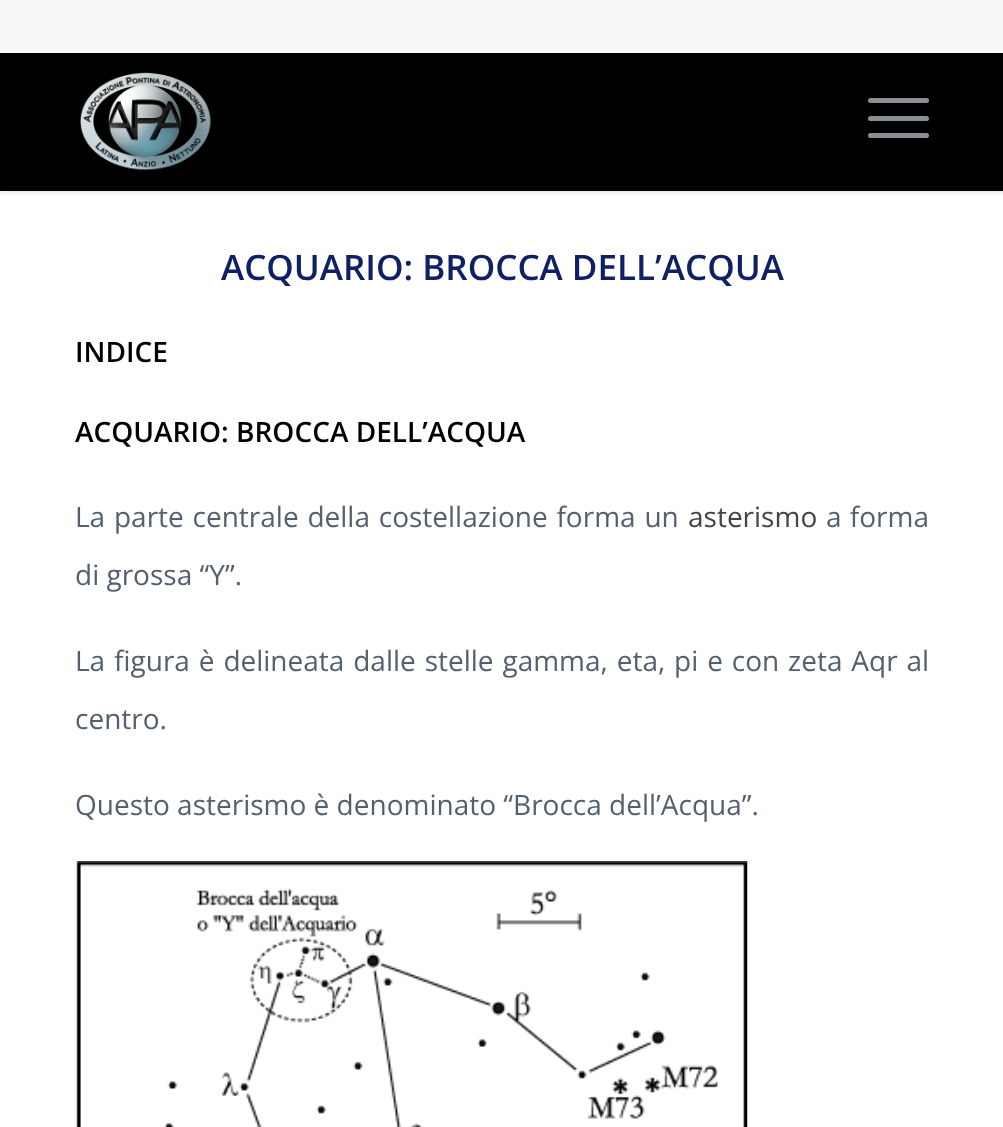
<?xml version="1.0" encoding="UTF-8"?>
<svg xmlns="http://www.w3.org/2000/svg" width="1003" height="1127">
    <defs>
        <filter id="blur1" x="-50%" y="-200%" width="200%" height="500%"><feGaussianBlur stdDeviation="2"/></filter>
    </defs>
    <rect width="100%" height="100%" fill="#FFFFFF"/>
    <rect x="-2" y="-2" width="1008" height="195" fill="#000000" fill-opacity="0.1" filter="url(#blur1)"/>
    <rect x="0" y="0" width="1003" height="53" fill="#F8F8F8"/>
    <rect x="0" y="53" width="1003" height="138" fill="#000000"/>
    <image x="80" y="72" width="131" height="99" href="img_01.png"/>
    <rect x="868" y="116" width="61" height="5" rx="2.5" fill="#889095"/>
    <rect x="868" y="98" width="61" height="5" rx="2.5" fill="#889095"/>
    <rect x="868" y="133" width="61" height="5" rx="2.5" fill="#889095"/>
    <text x="221" y="280" font-family="Open Sans" font-size="35" font-weight="600" fill="#0F2066">ACQUARIO: BROCCA DELL’ACQUA</text>
    <text x="75" y="362" font-family="Open Sans" font-size="28" font-weight="600" fill="#000000">INDICE</text>
    <text x="75" y="442" font-family="Open Sans" font-size="28" font-weight="600" fill="#000000">ACQUARIO: BROCCA DELL’ACQUA</text>
    <text x="75" y="527" word-spacing="1.5" font-family="Open Sans" font-size="28" fill="#55606E">La parte centrale della costellazione forma un</text>
    <text x="688" y="527" font-family="Open Sans" font-size="28" fill="#474343">asterismo</text>
    <text x="826" y="527" word-spacing="1" font-family="Open Sans" font-size="28" fill="#55606E">a forma</text>
    <text x="75" y="585" font-family="Open Sans" font-size="28" fill="#55606E">di grossa “Y”.</text>
    <text x="75" y="671" word-spacing="1.6" font-family="Open Sans" font-size="28" fill="#55606E">La figura è delineata dalle stelle gamma, eta, pi e con zeta Aqr al</text>
    <text x="75" y="729" font-family="Open Sans" font-size="28" fill="#55606E">centro.</text>
    <text x="75" y="815" font-family="Open Sans" font-size="28" fill="#55606E">Questo asterismo è denominato “Brocca dell’Acqua”.</text>
    <image x="76" y="861" width="672" height="266" href="img_02.png"/>
</svg>
